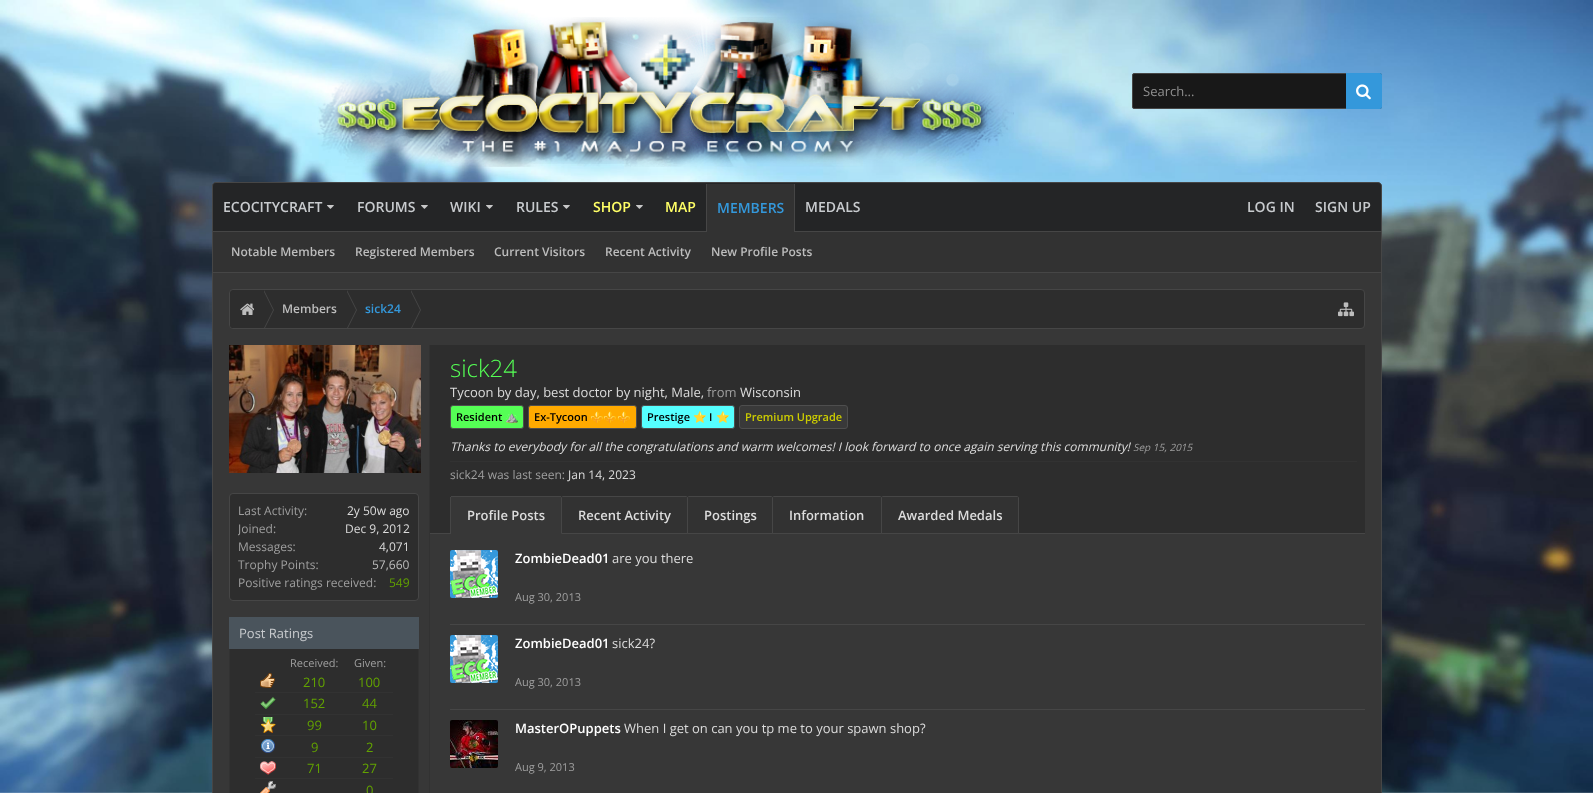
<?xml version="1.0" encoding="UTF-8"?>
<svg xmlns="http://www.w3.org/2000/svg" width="1593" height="793">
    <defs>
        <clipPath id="clip1"><rect x="230" y="290" width="1134" height="38" rx="3"/></clipPath>
        <clipPath id="clip2"><rect x="238" y="520" width="172" height="18"/></clipPath>
    </defs>
    <rect width="100%" height="100%" fill="#FFFFFF"/>
    <image x="0" y="0" width="1593" height="793" href="img_01.png"/>
    <image x="317" y="17" width="697" height="150" href="img_02.png"/>
    <rect x="1132.5" y="73.5" width="249" height="35" rx="1.5" fill="#181818" stroke="#464646"/>
    <text x="1143" y="96" font-family="Open Sans" font-size="13" fill="#909090">Search...</text>
    <path d="M 1346 73 H 1380 C 1381 73 1382 74 1382 75 V 107 C 1382 108 1381 109 1380 109 H 1346 Z" fill="#3498DB"/>
    <image x="1356" y="84" width="15" height="16" href="img_03.png"/>
    <path d="M 216 182.5 H 1378 C 1380 182.5 1381.5 184 1381.5 186 V 231.5 H 212.5 V 186 C 212.5 184 214 182.5 216 182.5 Z" fill="#242526" stroke="#464646"/>
    <text x="223" y="212" font-family="Open Sans" font-size="14" font-weight="600" fill="#C8CBCE">ECOCITYCRAFT</text>
    <image x="327" y="205" width="7" height="4" href="img_04.png"/>
    <text x="357" y="212" font-family="Open Sans" font-size="14" font-weight="600" fill="#C8CBCE">FORUMS</text>
    <image x="421" y="205" width="7" height="4" href="img_04.png"/>
    <text x="516" y="212" font-family="Open Sans" font-size="14" font-weight="600" fill="#C8CBCE">RULES</text>
    <image x="563" y="205" width="7" height="4" href="img_04.png"/>
    <text x="593" y="212" font-family="Open Sans" font-size="14" font-weight="600" fill="#FFFF66">SHOP</text>
    <image x="636" y="205" width="7" height="4" href="img_04.png"/>
    <text x="665" y="212" font-family="Open Sans" font-size="14" font-weight="600" fill="#FFFF66">MAP</text>
    <text x="805" y="212" font-family="Open Sans" font-size="14" font-weight="600" fill="#C8CBCE">MEDALS</text>
    <rect x="707" y="184" width="87" height="48" fill="#323232"/>
    <rect x="794" y="184" width="1" height="48" fill="#464646"/>
    <rect x="706" y="184" width="1" height="48" fill="#464646"/>
    <text x="717" y="213" font-family="Open Sans" font-size="14" font-weight="600" fill="#3498DB">MEMBERS</text>
    <rect x="213" y="232" width="1168" height="40" fill="#323232"/>
    <rect x="1381" y="232" width="1" height="561" fill="#464646"/>
    <rect x="212" y="272" width="1170" height="1" fill="#464646"/>
    <rect x="212" y="232" width="1" height="41" fill="#464646"/>
    <text x="231" y="256" font-family="Open Sans" font-size="12" font-weight="600" fill="#BDBDBD">Notable Members</text>
    <text x="355" y="256" font-family="Open Sans" font-size="12" font-weight="600" fill="#BDBDBD">Registered Members</text>
    <text x="494" y="256" font-family="Open Sans" font-size="12" font-weight="600" fill="#BDBDBD">Current Visitors</text>
    <text x="605" y="256" font-family="Open Sans" font-size="12" font-weight="600" fill="#BDBDBD">Recent Activity</text>
    <text x="711" y="256" font-family="Open Sans" font-size="12" font-weight="600" fill="#BDBDBD">New Profile Posts</text>
    <text x="450" y="212" font-family="Open Sans" font-size="14" font-weight="600" fill="#C8CBCE">WIKI</text>
    <image x="486" y="205" width="7" height="4" href="img_04.png"/>
    <text x="1247" y="212" font-family="Open Sans" font-size="14" font-weight="600" fill="#C8CBCE">LOG IN</text>
    <text x="1315" y="212" font-family="Open Sans" font-size="14" font-weight="600" fill="#C8CBCE">SIGN UP</text>
    <rect x="213" y="273" width="1168" height="520" fill="#373737"/>
    <rect x="212" y="273" width="1" height="520" fill="#464646"/>
    <rect x="229.5" y="289.5" width="1135" height="39" rx="3.5" fill="#2D2D2D" stroke="#464646"/>
    <g clip-path="url(#clip1)">
        <path d="M 234 290 H 264 V 329 H 234 C 232 329 230 327 230 325 V 294 C 230 292 232 290 234 290 Z" fill="#2D2D2D"/>
    </g>
    <image x="240" y="303" width="14" height="12" href="img_05.png"/>
    <path d="M 265 328 H 264 V 290 L 274 310 Z" fill="#464646"/>
    <path d="M 264 328 H 263 V 290 L 273 310 Z" fill="#2D2D2D"/>
    <text x="282" y="313" font-family="Open Sans" font-size="12" font-weight="600" fill="#BDBDBD">Members</text>
    <path d="M 348 328 H 347 V 290 L 357 310 Z" fill="#464646"/>
    <path d="M 347 328 H 346 V 290 L 356 310 Z" fill="#2D2D2D"/>
    <text x="365" y="313" font-family="Open Sans" font-size="12" font-weight="600" fill="#3498DB">sick24</text>
    <path d="M 412 328 H 411 V 290 L 421 310 Z" fill="#464646"/>
    <path d="M 411 328 H 410 V 290 L 420 310 Z" fill="#2D2D2D"/>
    <image x="1338" y="302" width="16" height="15" href="img_06.png"/>
    <image x="229" y="345" width="192" height="128" href="img_07.png"/>
    <rect x="229.5" y="493.5" width="189" height="107" rx="3.5" fill="none" stroke="#464646"/>
    <rect x="230" y="494" width="188" height="106" rx="4" fill="#2D2D2D"/>
    <text x="238" y="515" font-family="Open Sans" font-size="12" fill="#9F9F9F">Last Activity:</text>
    <text x="347" y="515" font-family="Open Sans" font-size="12" fill="#DCDCDC">2y 50w ago</text>
    <g clip-path="url(#clip2)">
        <text x="238" y="533" font-family="Open Sans" font-size="12" fill="#9F9F9F">Joined:</text>
    </g>
    <text x="345" y="533" font-family="Open Sans" font-size="12" fill="#DCDCDC">Dec 9, 2012</text>
    <text x="238" y="551" font-family="Open Sans" font-size="12" fill="#9F9F9F">Messages:</text>
    <text x="379" y="551" font-family="Open Sans" font-size="12" fill="#DCDCDC">4,071</text>
    <text x="238" y="569" font-family="Open Sans" font-size="12" fill="#9F9F9F">Trophy Points:</text>
    <text x="372" y="569" font-family="Open Sans" font-size="12" fill="#BDBDBD">57,660</text>
    <text x="238" y="587" font-family="Open Sans" font-size="12" fill="#9F9F9F">Positive ratings received:</text>
    <text x="389" y="587" font-family="Open Sans" font-size="12" fill="#62A201">549</text>
    <rect x="229" y="617" width="190" height="32" fill="#4A545C"/>
    <text x="239" y="638" font-family="Open Sans" font-size="13" fill="#C8CBCE">Post Ratings</text>
    <rect x="230" y="649" width="188" height="144" fill="#2D2D2D"/>
    <rect x="418" y="649" width="1" height="144" fill="#323232"/>
    <rect x="229" y="649" width="1" height="144" fill="#323232"/>
    <text x="290" y="667" font-family="Open Sans" font-size="11" fill="#9F9F9F">Received:</text>
    <text x="354" y="667" font-family="Open Sans" font-size="11" fill="#9F9F9F">Given:</text>
    <image x="260" y="673" width="15" height="15" href="img_08.png"/>
    <text x="303" y="687" font-family="Open Sans" font-size="13" fill="#62A201">210</text>
    <text x="358" y="687" font-family="Open Sans" font-size="13" fill="#62A201">100</text>
    <rect x="255" y="692" width="138" height="1" fill="#323232"/>
    <image x="260" y="697" width="16" height="12" href="img_09.png"/>
    <text x="303" y="708" font-family="Open Sans" font-size="13" fill="#62A201">152</text>
    <text x="362" y="708" font-family="Open Sans" font-size="13" fill="#62A201">44</text>
    <rect x="255" y="714" width="138" height="1" fill="#323232"/>
    <image x="261" y="717" width="15" height="16" href="img_10.png"/>
    <text x="307" y="730" font-family="Open Sans" font-size="13" fill="#62A201">99</text>
    <text x="362" y="730" font-family="Open Sans" font-size="13" fill="#62A201">10</text>
    <rect x="255" y="735" width="138" height="1" fill="#323232"/>
    <image x="261" y="739" width="14" height="14" href="img_11.png"/>
    <text x="311" y="752" font-family="Open Sans" font-size="13" fill="#62A201">9</text>
    <text x="366" y="752" font-family="Open Sans" font-size="13" fill="#62A201">2</text>
    <rect x="255" y="757" width="138" height="1" fill="#323232"/>
    <image x="260" y="761" width="16" height="14" href="img_12.png"/>
    <text x="307" y="773" font-family="Open Sans" font-size="13" fill="#62A201">71</text>
    <text x="362" y="773" font-family="Open Sans" font-size="13" fill="#62A201">27</text>
    <rect x="255" y="778" width="138" height="1" fill="#323232"/>
    <image x="260" y="781" width="16" height="12" href="img_13.png"/>
    <text x="366" y="795" font-family="Open Sans" font-size="13" fill="#62A201">0</text>
    <rect x="429" y="345" width="1" height="448" fill="#323232"/>
    <rect x="430" y="345" width="935" height="188" fill="#2D2D2D"/>
    <text x="450" y="377" font-family="Open Sans" font-size="24" font-weight="300" fill="#55FF55">sick24</text>
    <text x="450" y="397" font-family="Open Sans" font-size="13" fill="#DCDCDC">Tycoon by day, best doctor by night, Male,</text>
    <text x="707" y="397" font-family="Open Sans" font-size="13" fill="#9F9F9F">from</text>
    <text x="740" y="397" font-family="Open Sans" font-size="13" fill="#DCDCDC">Wisconsin</text>
    <rect x="450.5" y="405.5" width="73" height="23" rx="2.5" fill="#55FF55" stroke="#4E4E4E"/>
    <text x="456" y="421" font-family="Open Sans" font-size="11" font-weight="600" fill="#000000">Resident</text>
    <text x="505" y="421" font-family="Noto Color Emoji" font-size="11" font-weight="700" fill="#000000">⛰️</text>
    <rect x="528.5" y="405.5" width="108" height="23" rx="2.5" fill="#FFAA00" stroke="#4E4E4E"/>
    <text x="534" y="421" font-family="Open Sans" font-size="11" font-weight="600" fill="#000000">Ex-Tycoon</text>
    <text x="590" y="421" font-family="Noto Color Emoji" font-size="11" font-weight="700" fill="#000000">⚜️⚜️⚜️</text>
    <rect x="641.5" y="405.5" width="93" height="23" rx="2.5" fill="#55FFFF" stroke="#4E4E4E"/>
    <text x="647" y="421" font-family="Open Sans" font-size="11" font-weight="600" fill="#000000">Prestige</text>
    <text x="693" y="421" font-family="Noto Color Emoji" font-size="11" font-weight="700" fill="#000000">⭐</text>
    <text x="709" y="421" font-family="Open Sans" font-size="11" font-weight="600" fill="#000000">I</text>
    <text x="716" y="421" font-family="Noto Color Emoji" font-size="11" font-weight="700" fill="#000000">⭐</text>
    <rect x="739.5" y="405.5" width="108" height="23" rx="2.5" fill="#393939" stroke="#4E4E4E"/>
    <text x="745" y="421" font-family="Open Sans" font-size="11" font-weight="600" fill="#CCCC00">Premium Upgrade</text>
    <text x="450" y="451" font-family="Open Sans" font-size="12" font-style="italic" fill="#DCDCDC">Thanks to everybody for all the congratulations and warm welcomes! I look forward to once again serving this community!</text>
    <text x="1133" y="451" font-family="Open Sans" font-size="10" font-style="italic" fill="#9F9F9F">Sep 15, 2015</text>
    <rect x="450" y="461" width="907" height="1" fill="#323232"/>
    <text x="450" y="479" font-family="Open Sans" font-size="12" fill="#9F9F9F">sick24 was last seen:</text>
    <text x="568" y="479" font-family="Open Sans" font-size="12" fill="#DCDCDC">Jan 14, 2023</text>
    <rect x="430" y="533" width="935" height="1" fill="#464646"/>
    <path d="M 452 496 H 560 C 561 496 562 497 562 498 V 534 H 450 V 498 C 450 497 451 496 452 496 Z" fill="#373737"/>
    <rect x="451" y="496" width="110" height="1" fill="#464646"/>
    <rect x="450" y="497" width="1" height="37" fill="#464646"/>
    <text x="467" y="520" font-family="Open Sans" font-size="13" font-weight="600" fill="#DCDCDC">Profile Posts</text>
    <path d="M 563 496.5 H 686 C 687 496.5 687.5 497 687.5 498 V 533.5 H 561.5 V 498 C 561.5 497 562 496.5 563 496.5 Z" fill="#323232" stroke="#464646"/>
    <text x="578" y="520" font-family="Open Sans" font-size="13" font-weight="600" fill="#DCDCDC">Recent Activity</text>
    <path d="M 689 496.5 H 771 C 772 496.5 772.5 497 772.5 498 V 533.5 H 687.5 V 498 C 687.5 497 688 496.5 689 496.5 Z" fill="#323232" stroke="#464646"/>
    <text x="704" y="520" font-family="Open Sans" font-size="13" font-weight="600" fill="#DCDCDC">Postings</text>
    <path d="M 774 496.5 H 880 C 881 496.5 881.5 497 881.5 498 V 533.5 H 772.5 V 498 C 772.5 497 773 496.5 774 496.5 Z" fill="#323232" stroke="#464646"/>
    <text x="789" y="520" font-family="Open Sans" font-size="13" font-weight="600" fill="#DCDCDC">Information</text>
    <path d="M 883 496.5 H 1017 C 1018 496.5 1018.5 497 1018.5 498 V 533.5 H 881.5 V 498 C 881.5 497 882 496.5 883 496.5 Z" fill="#323232" stroke="#464646"/>
    <text x="898" y="520" font-family="Open Sans" font-size="13" font-weight="600" fill="#DCDCDC">Awarded Medals</text>
    <rect x="450" y="624" width="915" height="1" fill="#464646"/>
    <rect x="450" y="550" width="48" height="48" rx="2" fill="#3498DB"/>
    <image x="450" y="550" width="48" height="48" href="img_14.png"/>
    <text x="515" y="563" font-family="Open Sans" font-size="13" font-weight="600" fill="#FFFFFF">ZombieDead01</text>
    <text x="612" y="563" font-family="Open Sans" font-size="13" fill="#DCDCDC">are you there</text>
    <text x="515" y="601" font-family="Open Sans" font-size="11" fill="#9F9F9F">Aug 30, 2013</text>
    <rect x="450" y="709" width="915" height="1" fill="#464646"/>
    <rect x="450" y="635" width="48" height="48" rx="2" fill="#3498DB"/>
    <image x="450" y="635" width="48" height="48" href="img_14.png"/>
    <text x="515" y="648" font-family="Open Sans" font-size="13" font-weight="600" fill="#FFFFFF">ZombieDead01</text>
    <text x="612" y="648" font-family="Open Sans" font-size="13" fill="#DCDCDC">sick24?</text>
    <text x="515" y="686" font-family="Open Sans" font-size="11" fill="#9F9F9F">Aug 30, 2013</text>
    <image x="450" y="720" width="48" height="48" href="img_15.png"/>
    <text x="515" y="733" font-family="Open Sans" font-size="13" font-weight="600" fill="#FFFFFF">MasterOPuppets</text>
    <text x="624" y="733" font-family="Open Sans" font-size="13" fill="#DCDCDC">When I get on can you tp me to your spawn shop?</text>
    <text x="515" y="771" font-family="Open Sans" font-size="11" fill="#9F9F9F">Aug 9, 2013</text>
</svg>
